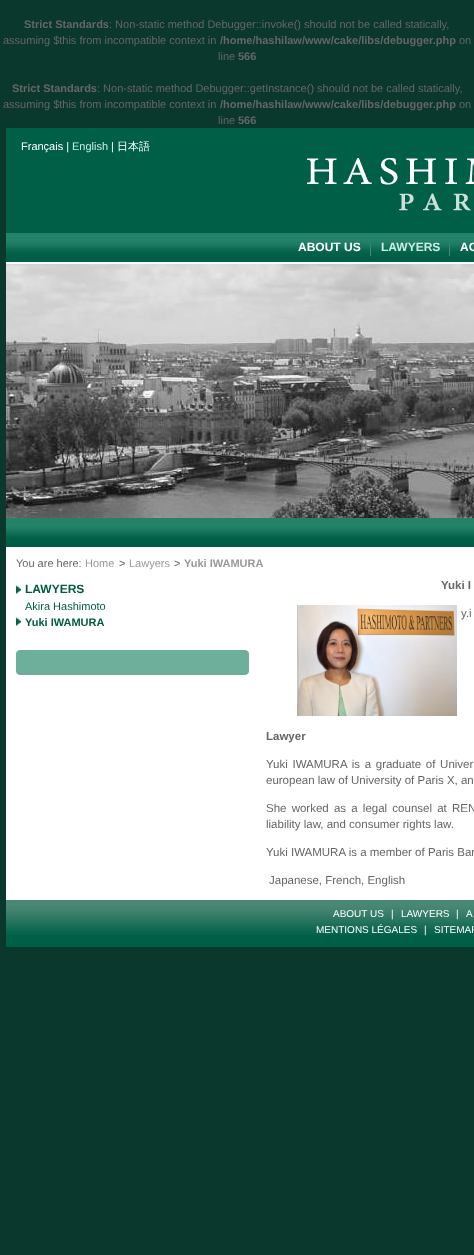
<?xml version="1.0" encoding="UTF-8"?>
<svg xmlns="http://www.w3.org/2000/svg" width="474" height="1255">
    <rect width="100%" height="100%" fill="#0A382C"/>
    <text x="24" y="28" font-family="Liberation Sans" font-size="11" font-weight="700" fill="#666666">Strict Standards</text>
    <text x="109" y="28" font-family="Liberation Sans" font-size="11" fill="#666666">: Non-static method Debugger::invoke() should not be called statically,</text>
    <text x="3" y="44" font-family="Liberation Sans" font-size="11" fill="#666666">assuming $this from incompatible context in</text>
    <text x="220" y="44" font-family="Liberation Sans" font-size="11" font-weight="700" fill="#666666">/home/hashilaw/www/cake/libs/debugger.php</text>
    <text x="459" y="44" font-family="Liberation Sans" font-size="11" fill="#666666">on</text>
    <text x="218" y="60" font-family="Liberation Sans" font-size="11" fill="#666666">line</text>
    <text x="238" y="60" font-family="Liberation Sans" font-size="11" font-weight="700" fill="#666666">566</text>
    <text x="12" y="92" font-family="Liberation Sans" font-size="11" font-weight="700" fill="#666666">Strict Standards</text>
    <text x="97" y="92" font-family="Liberation Sans" font-size="11" fill="#666666">: Non-static method Debugger::getInstance() should not be called statically,</text>
    <text x="3" y="108" font-family="Liberation Sans" font-size="11" fill="#666666">assuming $this from incompatible context in</text>
    <text x="220" y="108" font-family="Liberation Sans" font-size="11" font-weight="700" fill="#666666">/home/hashilaw/www/cake/libs/debugger.php</text>
    <text x="459" y="108" font-family="Liberation Sans" font-size="11" fill="#666666">on</text>
    <text x="218" y="124" font-family="Liberation Sans" font-size="11" fill="#666666">line</text>
    <text x="238" y="124" font-family="Liberation Sans" font-size="11" font-weight="700" fill="#666666">566</text>
    <rect x="6" y="547" width="468" height="353" fill="#FFFFFF"/>
    <rect x="6" y="128" width="468" height="105" fill="#005F47"/>
    <text x="21" y="150" font-family="Liberation Sans" font-size="11" fill="#FFFFFF">Français |</text>
    <text x="72" y="150" font-family="Liberation Sans" font-size="11" fill="#CAEEE4">English</text>
    <text x="111" y="150" font-family="Liberation Sans" font-size="11" fill="#FFFFFF">|</text>
    <text x="117" y="150" font-family="WenQuanYi Zen Hei" font-size="11" font-weight="500" fill="#FFFFFF">日本語</text>
    <image x="307" y="158" width="167" height="53" href="img_01.png"/>
    <image x="6" y="233" width="468" height="29" href="img_02.png"/>
    <rect x="6" y="262" width="468" height="2" fill="#FFFFFF"/>
    <image x="370" y="243" width="1" height="13" href="img_03.png"/>
    <text x="298" y="251" font-family="Liberation Sans" font-size="12" font-weight="700" fill="#FFFFFF">ABOUT US</text>
    <image x="449" y="243" width="1" height="13" href="img_03.png"/>
    <text x="381" y="251" font-family="Liberation Sans" font-size="12" font-weight="700" fill="#CAEEE4">LAWYERS</text>
    <text x="460" y="251" font-family="Liberation Sans" font-size="12" font-weight="700" fill="#FFFFFF">AC</text>
    <image x="6" y="264" width="468" height="254" href="img_04.png"/>
    <image x="6" y="518" width="468" height="29" href="img_05.png"/>
    <text x="16" y="567" font-family="Liberation Sans" font-size="11" fill="#666666">You are here:</text>
    <text x="85" y="567" font-family="Liberation Sans" font-size="11" fill="#999999">Home</text>
    <text x="119" y="567" font-family="Liberation Sans" font-size="11" fill="#666666">&gt;</text>
    <text x="129" y="567" font-family="Liberation Sans" font-size="11" fill="#999999">Lawyers</text>
    <text x="174" y="567" font-family="Liberation Sans" font-size="11" fill="#666666">&gt;</text>
    <text x="184" y="567" font-family="Liberation Sans" font-size="11" font-weight="700" fill="#999999">Yuki IWAMURA</text>
    <image x="16" y="585" width="5" height="9" href="img_06.png"/>
    <text x="25" y="593" font-family="Liberation Sans" font-size="12" font-weight="700" fill="#025C40">LAWYERS</text>
    <text x="25" y="610" font-family="Liberation Sans" font-size="11" fill="#025C40">Akira Hashimoto</text>
    <image x="16" y="617" width="5" height="9" href="img_06.png"/>
    <text x="25" y="626" font-family="Liberation Sans" font-size="11" font-weight="700" fill="#025C40">Yuki IWAMURA</text>
    <image x="16" y="650" width="233" height="25" href="img_07.png"/>
    <text x="441" y="589" font-family="Liberation Sans" font-size="11.5" font-weight="700" fill="#666666">Yuki I</text>
    <image x="297" y="605" width="160" height="111" href="img_08.png"/>
    <text x="461" y="617" font-family="Liberation Sans" font-size="11.5" fill="#666666">y.i</text>
    <text x="266" y="740" font-family="Liberation Sans" font-size="11.5" font-weight="700" fill="#666666">Lawyer</text>
    <text font-family="Liberation Sans" font-size="11.5" fill="#666666">
        <tspan x="266" y="768" word-spacing="1.5">Yuki IWAMURA is a graduate of Univer</tspan>
        <tspan x="266" y="784">european law of University of Paris X, an</tspan>
    </text>
    <text font-family="Liberation Sans" font-size="11.5" fill="#666666">
        <tspan x="266" y="812" word-spacing="2">She worked as a legal counsel at REN</tspan>
        <tspan x="266" y="828">liability law, and consumer rights law.</tspan>
    </text>
    <text x="266" y="856" font-family="Liberation Sans" font-size="11.5" fill="#666666">Yuki IWAMURA is a member of Paris Bar</text>
    <text x="269" y="884" font-family="Liberation Sans" font-size="11.5" fill="#666666">Japanese, French, English</text>
    <rect x="6" y="935" width="468" height="12" fill="#005F47"/>
    <image x="6" y="900" width="468" height="35" href="img_09.png"/>
    <text x="333" y="917" font-family="Liberation Sans" font-size="10" fill="#FFFFFF">ABOUT US</text>
    <text x="391" y="917" font-family="Liberation Sans" font-size="10" fill="#FFFFFF">|</text>
    <text x="401" y="917" font-family="Liberation Sans" font-size="10" fill="#FFFFFF">LAWYERS</text>
    <text x="456" y="917" font-family="Liberation Sans" font-size="10" fill="#FFFFFF">|</text>
    <text x="466" y="917" font-family="Liberation Sans" font-size="10" fill="#FFFFFF">A</text>
    <text x="316" y="933" font-family="Liberation Sans" font-size="10" fill="#FFFFFF">MENTIONS LÉGALES</text>
    <text x="424" y="933" font-family="Liberation Sans" font-size="10" fill="#FFFFFF">|</text>
    <text x="434" y="933" font-family="Liberation Sans" font-size="10" fill="#FFFFFF">SITEMAP</text>
</svg>
